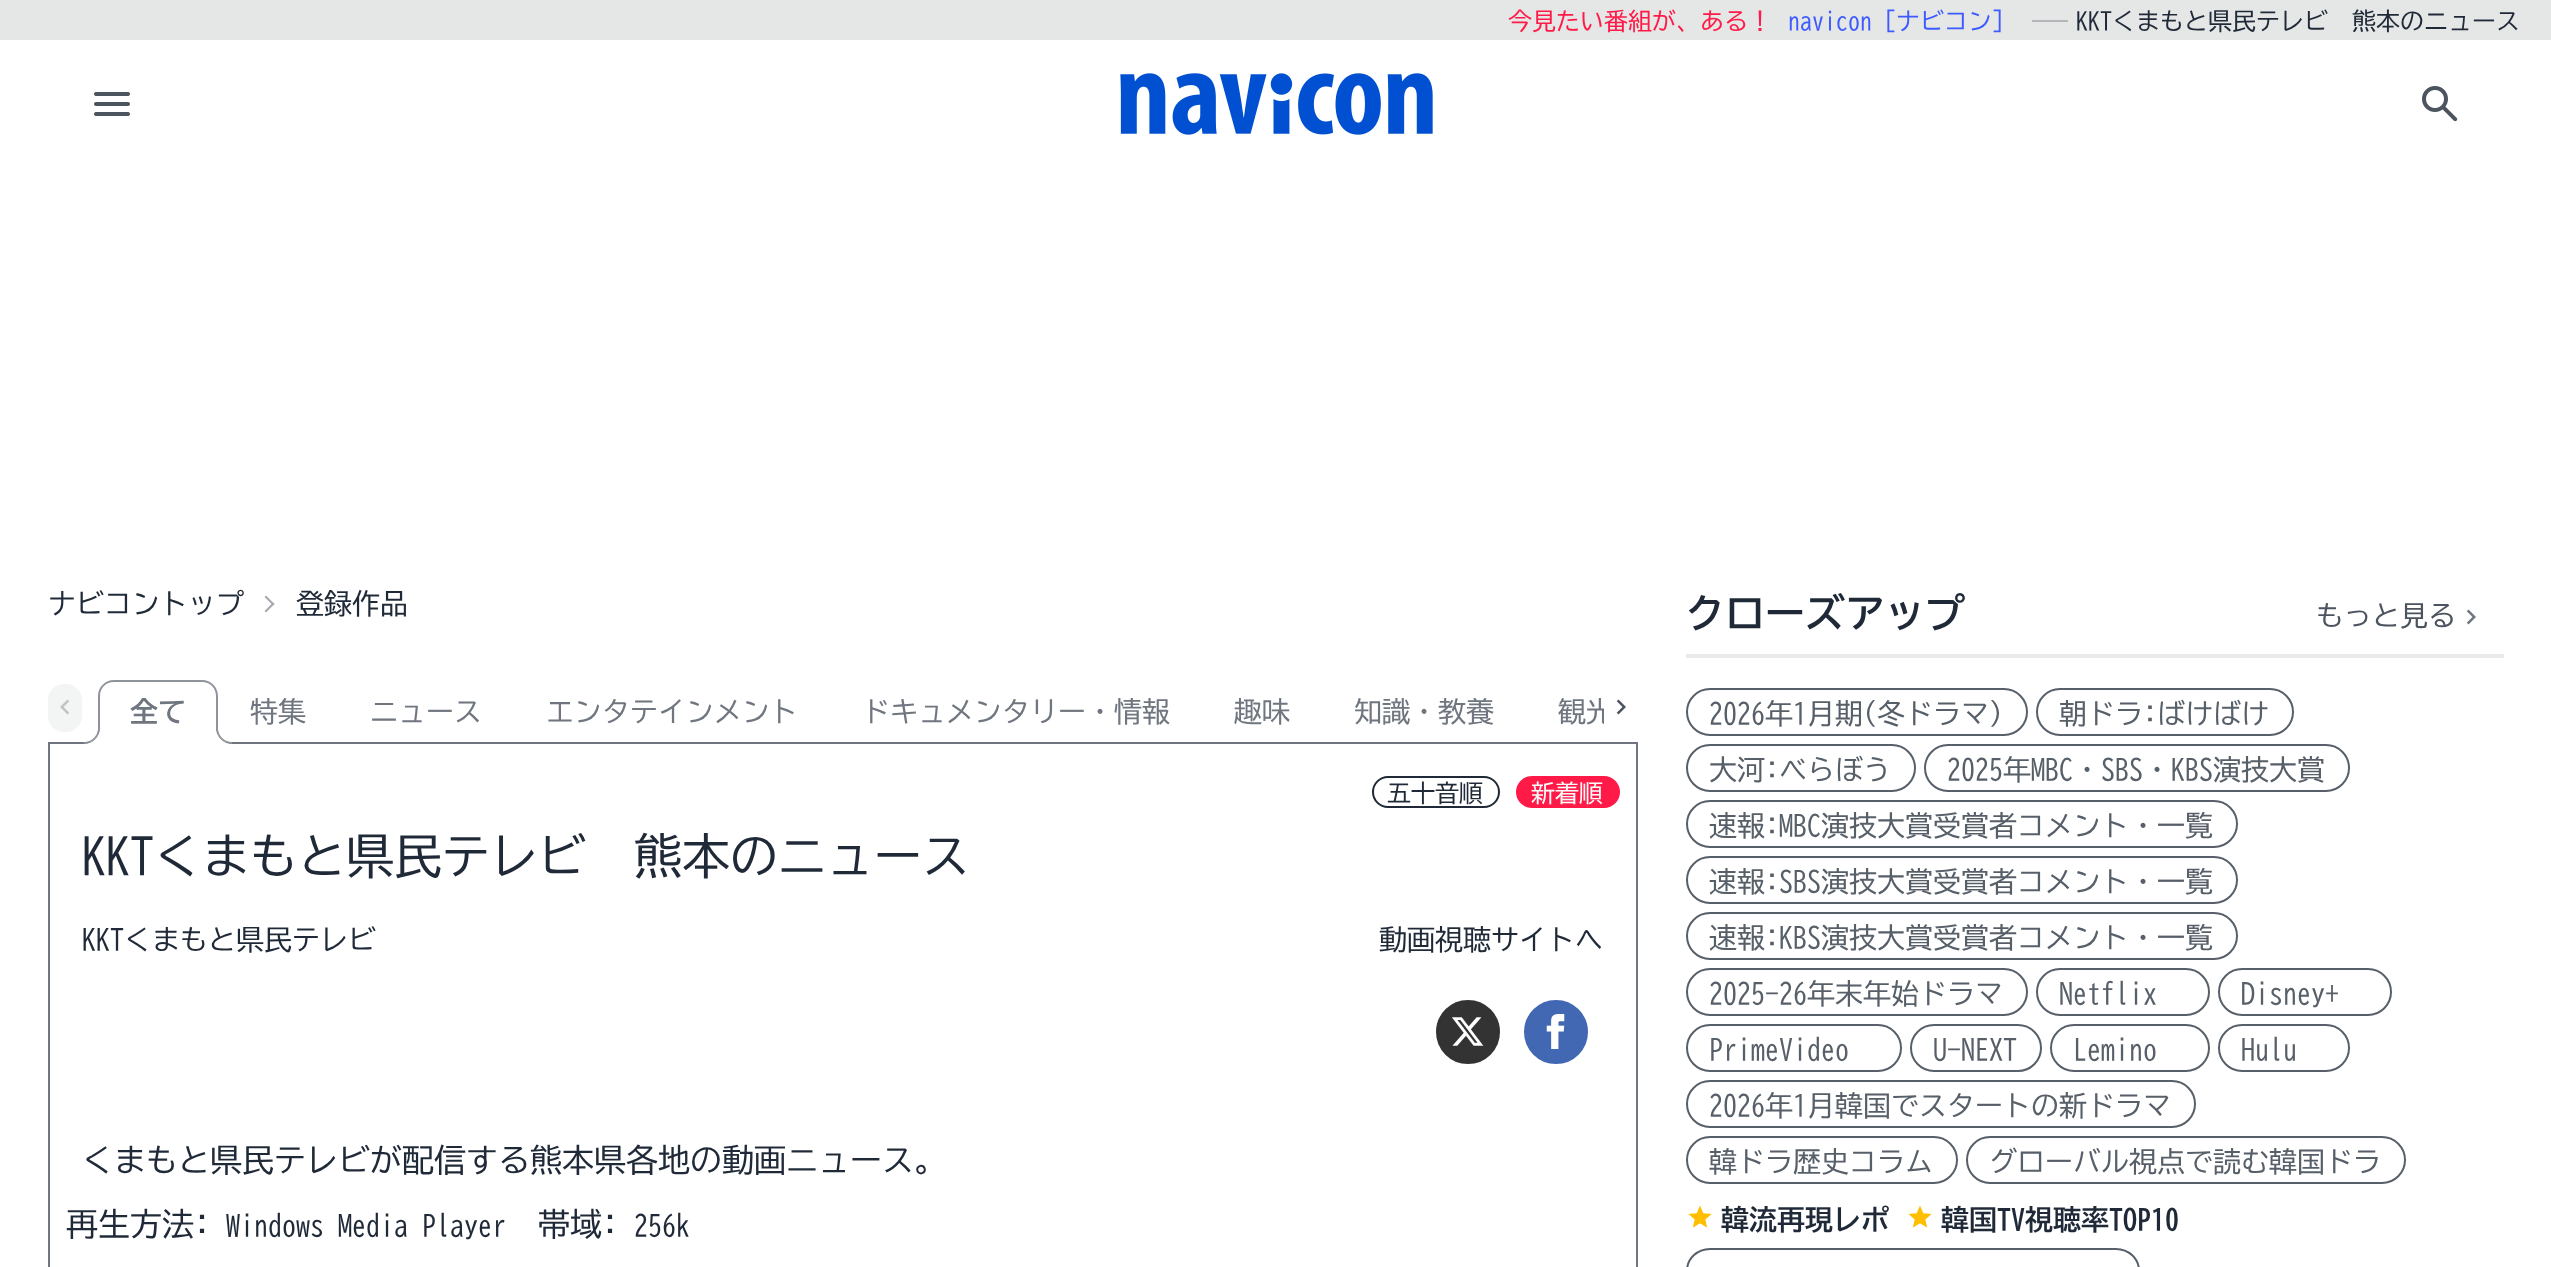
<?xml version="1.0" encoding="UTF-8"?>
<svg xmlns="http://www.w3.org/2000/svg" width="2551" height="1267">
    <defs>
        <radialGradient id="g1" gradientUnits="userSpaceOnUse" cx="84" cy="728" r="23"><stop offset="0.59" stop-color="#8F9399" stop-opacity="0"/><stop offset="0.62" stop-color="#8F9399" stop-opacity="0.9"/><stop offset="0.68" stop-color="#8F9399" stop-opacity="0.9"/><stop offset="0.71" stop-color="#FFFFFF"/></radialGradient>
        <radialGradient id="g2" gradientUnits="userSpaceOnUse" cx="232" cy="728" r="23"><stop offset="0.59" stop-color="#8F9399" stop-opacity="0"/><stop offset="0.62" stop-color="#8F9399" stop-opacity="0.9"/><stop offset="0.68" stop-color="#8F9399" stop-opacity="0.9"/><stop offset="0.71" stop-color="#FFFFFF"/></radialGradient>
        <clipPath id="clip1"><rect x="82" y="680" width="1522" height="64"/></clipPath>
    </defs>
    <rect width="100%" height="100%" fill="#FFFFFF"/>
    <rect x="0" y="0" width="2551" height="40" fill="#E5E6E6"/>
    <text x="1508" y="30" font-family="BIZ UDGothic" font-size="24" fill="#FF1A47">今見たい番組が、ある！</text>
    <text x="1788" y="30" font-family="BIZ UDGothic" font-size="24" fill="#3E5BFE">navicon［ナビコン］</text>
    <rect x="2032" y="20" width="36" height="2" fill="#B4B7BA"/>
    <text x="2076" y="30" font-family="BIZ UDGothic" font-size="24" fill="#1F2937">KKTくまもと県民テレビ　熊本のニュース</text>
    <image x="94" y="92" width="36" height="24" href="img_01.png"/>
    <image x="1120" y="73" width="313" height="62" href="img_02.png"/>
    <image x="2422" y="86" width="36" height="36" href="img_03.png"/>
    <text x="48" y="614" font-family="BIZ UDGothic" font-size="28" fill="#1F2937">ナビコントップ</text>
    <path d="M 266 595.5 L 274.5 604 L 273 605.5 L 264.5 597 Z" fill="#A5A9AF"/>
    <path d="M 273 602.5 L 274.5 604 L 266 612.5 L 264.5 611 Z" fill="#A5A9AF"/>
    <text x="296" y="614" font-family="BIZ UDGothic" font-size="28" fill="#1F2937">登録作品</text>
    <rect x="48" y="742" width="50" height="2" fill="#70767F"/>
    <rect x="48" y="684" width="34" height="48" rx="16" fill="#F3F4F4"/>
    <image x="60" y="699" width="9" height="16" href="img_04.png"/>
    <path d="M 114 680 H 202 C 211 680 218 687 218 696 V 744 H 98 V 696 C 98 687 105 680 114 680 Z M 114 682 H 202 C 210 682 216 688 216 696 V 744 H 100 V 696 C 100 688 106 682 114 682 Z" fill="#8F949B" fill-rule="evenodd"/>
    <text x="130" y="722" font-family="BIZ UDGothic" font-size="28" font-weight="700" fill="#70767F">全て</text>
    <rect x="84" y="730" width="16" height="14" fill="url(#g1)"/>
    <rect x="218" y="742" width="1386" height="2" fill="#70767F"/>
    <rect x="216" y="730" width="16" height="14" fill="url(#g2)"/>
    <text x="250" y="722" font-family="BIZ UDGothic" font-size="28" fill="#70767F">特集</text>
    <text x="370" y="722" font-family="BIZ UDGothic" font-size="28" fill="#70767F">ニュース</text>
    <text x="546" y="722" font-family="BIZ UDGothic" font-size="28" fill="#70767F">エンタテインメント</text>
    <text x="862" y="722" font-family="BIZ UDGothic" font-size="28" fill="#70767F">ドキュメンタリー・情報</text>
    <text x="1234" y="722" font-family="BIZ UDGothic" font-size="28" fill="#70767F">趣味</text>
    <text x="1354" y="722" font-family="BIZ UDGothic" font-size="28" fill="#70767F">知識・教養</text>
    <g clip-path="url(#clip1)">
        <text x="1558" y="722" font-family="BIZ UDGothic" font-size="28" fill="#70767F">観光</text>
    </g>
    <rect x="1604" y="742" width="34" height="2" fill="#70767F"/>
    <image x="1616" y="699" width="10" height="16" href="img_05.png"/>
    <path d="M 48 744 H 1638 V 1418 C 1638 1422 1634 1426 1630 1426 H 56 C 52 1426 48 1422 48 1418 Z M 50 744 H 1636 V 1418 C 1636 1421 1633 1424 1630 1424 H 56 C 53 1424 50 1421 50 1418 Z" fill="#70767F" fill-rule="evenodd"/>
    <rect x="1373" y="777" width="126" height="30" rx="15" fill="none" stroke="#1F2937" stroke-width="2"/>
    <text x="1387" y="802" font-family="BIZ UDGothic" font-size="24" fill="#1F2937">五十音順</text>
    <rect x="1517" y="777" width="102" height="30" rx="15" fill="#FF1A47" stroke="#FF1A47" stroke-width="2"/>
    <text x="1531" y="802" font-family="BIZ UDGothic" font-size="24" fill="#FAFAFA">新着順</text>
    <text x="82" y="874" font-family="BIZ UDGothic" font-size="48" fill="#1F2937">KKTくまもと県民テレビ　熊本のニュース</text>
    <text x="82" y="950" font-family="BIZ UDGothic" font-size="28" fill="#1F2937">KKTくまもと県民テレビ</text>
    <text x="1379" y="950" font-family="BIZ UDGothic" font-size="28" fill="#1F2937">動画視聴サイトへ</text>
    <circle cx="1468" cy="1032" r="31" fill="#333333" stroke="#333333" stroke-width="2"/>
    <image x="1452" y="1017" width="32" height="29" href="img_06.png"/>
    <circle cx="1556" cy="1032" r="31" fill="#4268B3" stroke="#4268B3" stroke-width="2"/>
    <image x="1546" y="1014" width="19" height="35" href="img_07.png"/>
    <text x="82" y="1172" font-family="BIZ UDGothic" font-size="32" fill="#1F2937">くまもと県民テレビが配信する熊本県各地の動画ニュース。</text>
    <text x="66" y="1236" font-family="BIZ UDGothic" font-size="32" fill="#1F2937">再生方法:</text>
    <text x="226" y="1236" font-family="BIZ UDGothic" font-size="28" fill="#1F2937">Windows Media Player</text>
    <text x="538" y="1236" font-family="BIZ UDGothic" font-size="32" fill="#1F2937">帯域:</text>
    <text x="634" y="1236" font-family="BIZ UDGothic" font-size="28" fill="#1F2937">256k</text>
    <text x="1685" y="628" font-family="BIZ UDGothic" font-size="40" font-weight="700" fill="#1F2937">クローズアップ</text>
    <text x="2316" y="626" font-family="BIZ UDGothic" font-size="28" fill="#4C545F">もっと見る</text>
    <image x="2466" y="609" width="10" height="16" href="img_08.png"/>
    <rect x="1686" y="654" width="818" height="4" fill="#E9EAEB"/>
    <rect x="1687" y="689" width="340" height="46" rx="23" fill="none" stroke="#575F69" stroke-width="2"/>
    <text x="1709" y="724" font-family="BIZ UDGothic" font-size="28" fill="#575F69">2026年1月期(冬ドラマ)</text>
    <rect x="2037" y="689" width="256" height="46" rx="23" fill="none" stroke="#575F69" stroke-width="2"/>
    <text x="2059" y="724" font-family="BIZ UDGothic" font-size="28" fill="#575F69">朝ドラ:ばけばけ</text>
    <rect x="1687" y="745" width="228" height="46" rx="23" fill="none" stroke="#575F69" stroke-width="2"/>
    <text x="1709" y="780" font-family="BIZ UDGothic" font-size="28" fill="#575F69">大河:べらぼう</text>
    <rect x="1925" y="745" width="424" height="46" rx="23" fill="none" stroke="#575F69" stroke-width="2"/>
    <text x="1947" y="780" font-family="BIZ UDGothic" font-size="28" fill="#575F69">2025年MBC・SBS・KBS演技大賞</text>
    <rect x="1687" y="801" width="550" height="46" rx="23" fill="none" stroke="#575F69" stroke-width="2"/>
    <text x="1709" y="836" font-family="BIZ UDGothic" font-size="28" fill="#575F69">速報:MBC演技大賞受賞者コメント・一覧</text>
    <rect x="1687" y="857" width="550" height="46" rx="23" fill="none" stroke="#575F69" stroke-width="2"/>
    <text x="1709" y="892" font-family="BIZ UDGothic" font-size="28" fill="#575F69">速報:SBS演技大賞受賞者コメント・一覧</text>
    <rect x="1687" y="913" width="550" height="46" rx="23" fill="none" stroke="#575F69" stroke-width="2"/>
    <text x="1709" y="948" font-family="BIZ UDGothic" font-size="28" fill="#575F69">速報:KBS演技大賞受賞者コメント・一覧</text>
    <rect x="1687" y="969" width="340" height="46" rx="23" fill="none" stroke="#575F69" stroke-width="2"/>
    <text x="1709" y="1004" font-family="BIZ UDGothic" font-size="28" fill="#575F69">2025-26年末年始ドラマ</text>
    <rect x="2037" y="969" width="172" height="46" rx="23" fill="none" stroke="#575F69" stroke-width="2"/>
    <text x="2059" y="1004" font-family="BIZ UDGothic" font-size="28" fill="#575F69">Netflix</text>
    <rect x="2219" y="969" width="172" height="46" rx="23" fill="none" stroke="#575F69" stroke-width="2"/>
    <text x="2241" y="1004" font-family="BIZ UDGothic" font-size="28" fill="#575F69">Disney+</text>
    <rect x="1687" y="1025" width="214" height="46" rx="23" fill="none" stroke="#575F69" stroke-width="2"/>
    <text x="1709" y="1060" font-family="BIZ UDGothic" font-size="28" fill="#575F69">PrimeVideo</text>
    <rect x="1911" y="1025" width="130" height="46" rx="23" fill="none" stroke="#575F69" stroke-width="2"/>
    <text x="1933" y="1060" font-family="BIZ UDGothic" font-size="28" fill="#575F69">U-NEXT</text>
    <rect x="2051" y="1025" width="158" height="46" rx="23" fill="none" stroke="#575F69" stroke-width="2"/>
    <text x="2073" y="1060" font-family="BIZ UDGothic" font-size="28" fill="#575F69">Lemino</text>
    <rect x="2219" y="1025" width="130" height="46" rx="23" fill="none" stroke="#575F69" stroke-width="2"/>
    <text x="2241" y="1060" font-family="BIZ UDGothic" font-size="28" fill="#575F69">Hulu</text>
    <rect x="1687" y="1081" width="508" height="46" rx="23" fill="none" stroke="#575F69" stroke-width="2"/>
    <text x="1709" y="1116" font-family="BIZ UDGothic" font-size="28" fill="#575F69">2026年1月韓国でスタートの新ドラマ</text>
    <rect x="1687" y="1137" width="270" height="46" rx="23" fill="none" stroke="#575F69" stroke-width="2"/>
    <text x="1709" y="1172" font-family="BIZ UDGothic" font-size="28" fill="#575F69">韓ドラ歴史コラム</text>
    <rect x="1967" y="1137" width="438" height="46" rx="23" fill="none" stroke="#575F69" stroke-width="2"/>
    <text x="1989" y="1172" font-family="BIZ UDGothic" font-size="28" fill="#575F69">グローバル視点で読む韓国ドラ</text>
    <image x="1688" y="1205" width="24" height="23" href="img_09.png"/>
    <text x="1721" y="1230" font-family="BIZ UDGothic" font-size="28" font-weight="700" fill="#1F2937">韓流再現レポ</text>
    <image x="1908" y="1205" width="24" height="23" href="img_09.png"/>
    <text x="1941" y="1230" font-family="BIZ UDGothic" font-size="28" font-weight="700" fill="#1F2937">韓国TV視聴率TOP10</text>
    <rect x="1687" y="1249" width="452" height="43" rx="23" fill="none" stroke="#575F69" stroke-width="2"/>
</svg>
